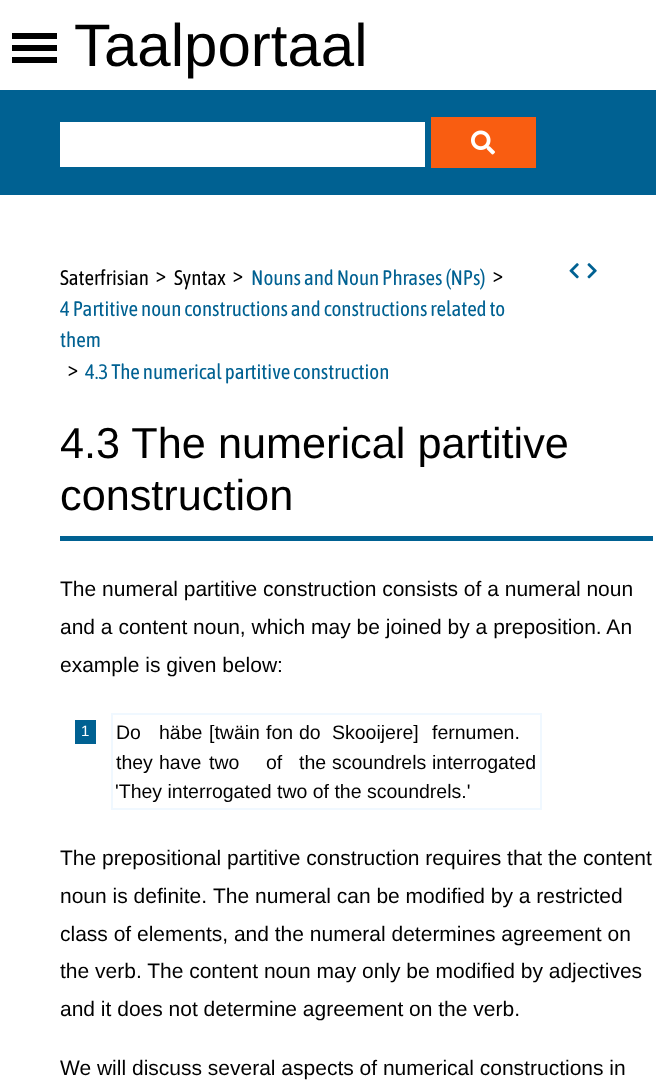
<?xml version="1.0" encoding="UTF-8"?>
<svg xmlns="http://www.w3.org/2000/svg" width="656" height="1085">
    <rect width="100%" height="100%" fill="#FFFFFF"/>
    <text x="74" y="66" font-family="Liberation Sans" font-size="60" fill="#000000">Taalportaal</text>
    <rect x="0" y="90" width="656" height="105" fill="#006192"/>
    <rect x="60" y="122" width="365" height="45" fill="#FFFFFF"/>
    <rect x="431" y="117" width="105" height="51" fill="#F95D11"/>
    <image x="471" y="130" width="24" height="25" href="img_01.png"/>
    <rect x="12" y="45" width="45" height="6" fill="#000000"/>
    <rect x="12" y="33" width="45" height="6" fill="#000000"/>
    <rect x="12" y="57" width="45" height="6" fill="#000000"/>
    <text x="60" y="285" font-family="Asap Condensed" font-size="21" fill="#000000">Saterfrisian</text>
    <text x="156" y="282" font-family="Asap Condensed" font-size="22" fill="#000000">&gt;</text>
    <text x="174" y="285" font-family="Asap Condensed" font-size="21" fill="#000000">Syntax</text>
    <text x="233" y="282" font-family="Asap Condensed" font-size="22" fill="#000000">&gt;</text>
    <text x="251" y="285" font-family="Asap Condensed" font-size="21" fill="#006192">Nouns and Noun Phrases (NPs)</text>
    <text x="493" y="282" font-family="Asap Condensed" font-size="22" fill="#000000">&gt;</text>
    <text font-family="Asap Condensed" font-size="21" fill="#006192">
        <tspan x="60" y="316">4 Partitive noun constructions and constructions related to</tspan>
        <tspan x="60" y="347">them</tspan>
    </text>
    <text x="68" y="376" font-family="Asap Condensed" font-size="22" fill="#000000">&gt;</text>
    <text x="85" y="379" font-family="Asap Condensed" font-size="21" fill="#006192">4.3 The numerical partitive construction</text>
    <image x="569" y="263" width="10" height="16" href="img_02.png"/>
    <image x="587" y="263" width="10" height="16" href="img_03.png"/>
    <rect x="60" y="536" width="593" height="5" fill="#006192"/>
    <text font-family="Liberation Sans" font-size="43.25" fill="#000000">
        <tspan x="60" y="458">4.3 The numerical partitive</tspan>
        <tspan x="60" y="510">construction</tspan>
    </text>
    <text font-family="Liberation Sans" font-size="21" fill="#000000">
        <tspan x="60" y="596">The numeral partitive construction consists of a numeral noun</tspan>
        <tspan x="60" y="634">and a content noun, which may be joined by a preposition. An</tspan>
        <tspan x="60" y="672">example is given below:</tspan>
    </text>
    <rect x="75" y="720" width="21" height="24" fill="#006192"/>
    <text x="81" y="736" font-family="Liberation Sans" font-size="15" fill="#FFFFFF">1</text>
    <rect x="112" y="714" width="429" height="95" fill="none" stroke="#F0F8FF" stroke-width="2"/>
    <text x="116" y="739" font-family="Liberation Sans" font-size="19.5" fill="#000000">Do</text>
    <text x="159" y="739" font-family="Liberation Sans" font-size="19.5" fill="#000000">häbe</text>
    <text x="209" y="739" font-family="Liberation Sans" font-size="19.5" fill="#000000">[twäin</text>
    <text x="266" y="739" font-family="Liberation Sans" font-size="19.5" fill="#000000">fon</text>
    <text x="299" y="739" font-family="Liberation Sans" font-size="19.5" fill="#000000">do</text>
    <text x="332" y="739" font-family="Liberation Sans" font-size="19.5" fill="#000000">Skooijere]</text>
    <text x="432" y="739" font-family="Liberation Sans" font-size="19.5" fill="#000000">fernumen.</text>
    <text x="116" y="769" font-family="Liberation Sans" font-size="19.5" fill="#000000">they</text>
    <text x="159" y="769" font-family="Liberation Sans" font-size="19.5" fill="#000000">have</text>
    <text x="209" y="769" font-family="Liberation Sans" font-size="19.5" fill="#000000">two</text>
    <text x="266" y="769" font-family="Liberation Sans" font-size="19.5" fill="#000000">of</text>
    <text x="299" y="769" font-family="Liberation Sans" font-size="19.5" fill="#000000">the</text>
    <text x="332" y="769" font-family="Liberation Sans" font-size="19.5" fill="#000000">scoundrels</text>
    <text x="432" y="769" font-family="Liberation Sans" font-size="19.5" fill="#000000">interrogated</text>
    <text x="115" y="798" font-family="Liberation Sans" font-size="19.5" fill="#000000">'They interrogated two of the scoundrels.'</text>
    <text font-family="Liberation Sans" font-size="21" fill="#000000">
        <tspan x="60" y="865">The prepositional partitive construction requires that the content</tspan>
        <tspan x="60" y="903">noun is definite.</tspan>
    </text>
    <text x="213" y="903" font-family="Liberation Sans" font-size="21" fill="#000000">The numeral can be modified by a restricted</text>
    <text font-family="Liberation Sans" font-size="21" fill="#000000">
        <tspan x="60" y="941">class of elements, and the numeral determines agreement on</tspan>
        <tspan x="60" y="978">the verb. The content noun may only be modified by adjectives</tspan>
        <tspan x="60" y="1016">and it does not determine agreement on the verb.</tspan>
    </text>
    <text x="60" y="1075" font-family="Liberation Sans" font-size="21" fill="#000000">We will discuss several aspects of numerical constructions in</text>
</svg>
